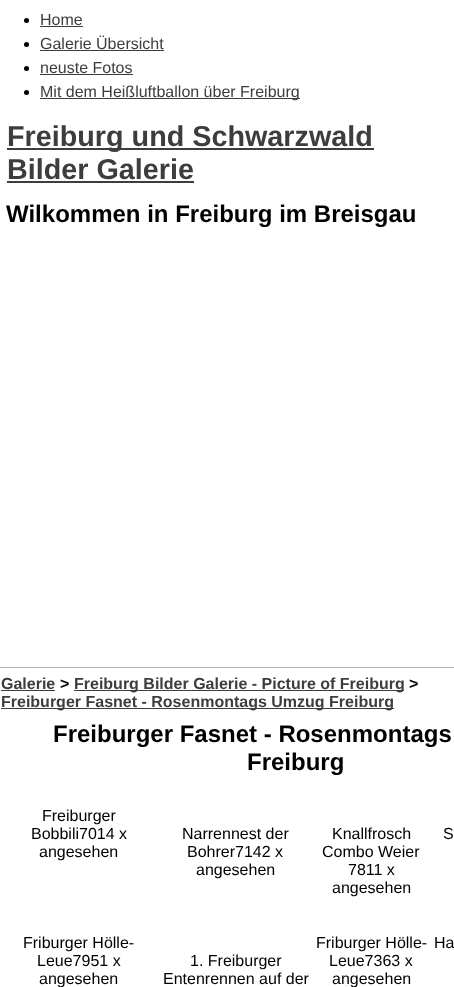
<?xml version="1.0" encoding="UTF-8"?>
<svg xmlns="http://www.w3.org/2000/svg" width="454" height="987">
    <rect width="100%" height="100%" fill="#FFFFFF"/>
    <circle cx="26.5" cy="20.5" r="2.5" fill="#000000"/>
    <text x="40" y="25" font-family="Liberation Sans" font-size="16" fill="#3D3D3D">Home</text>
    <rect x="40" y="26" width="43" height="1" fill="#3D3D3D"/>
    <circle cx="26.5" cy="44.5" r="2.5" fill="#000000"/>
    <text x="40" y="49" font-family="Liberation Sans" font-size="16" fill="#3D3D3D">Galerie Übersicht</text>
    <rect x="40" y="50" width="124" height="1" fill="#3D3D3D"/>
    <circle cx="26.5" cy="68.5" r="2.5" fill="#000000"/>
    <text x="40" y="73" font-family="Liberation Sans" font-size="16" fill="#3D3D3D">neuste Fotos</text>
    <rect x="40" y="74" width="93" height="1" fill="#3D3D3D"/>
    <circle cx="26.5" cy="92.5" r="2.5" fill="#000000"/>
    <rect x="40" y="98" width="260" height="1" fill="#3D3D3D"/>
    <text x="40" y="97" font-family="Liberation Sans" font-size="16" fill="#3D3D3D">Mit dem Heißluftballon über Freiburg</text>
    <rect x="7" y="148" width="367" height="2" fill="#3D3D3D"/>
    <text font-family="Liberation Sans" font-size="28.75" font-weight="700" fill="#3D3D3D">
        <tspan x="7" y="146">Freiburg und Schwarzwald</tspan>
        <tspan x="7" y="179">Bilder Galerie</tspan>
    </text>
    <rect x="7" y="181" width="187" height="2" fill="#3D3D3D"/>
    <text x="6" y="222" font-family="Liberation Sans" font-size="24" font-weight="700" fill="#000000">Wilkommen in Freiburg im Breisgau</text>
    <rect x="0" y="667" width="454" height="1" fill="#B5B5B5"/>
    <text x="1" y="689" font-family="Liberation Sans" font-size="16" font-weight="700" fill="#3D3D3D">Galerie</text>
    <rect x="1" y="690" width="54" height="1" fill="#3D3D3D"/>
    <text x="60" y="689" font-family="Liberation Sans" font-size="16" font-weight="700" fill="#000000">&gt;</text>
    <rect x="74" y="690" width="330" height="1" fill="#3D3D3D"/>
    <text x="74" y="689" font-family="Liberation Sans" font-size="16" font-weight="700" fill="#3D3D3D">Freiburg Bilder Galerie - Picture of Freiburg</text>
    <text x="409" y="689" font-family="Liberation Sans" font-size="16" font-weight="700" fill="#000000">&gt;</text>
    <rect x="1" y="708" width="393" height="1" fill="#3D3D3D"/>
    <text x="1" y="707" font-family="Liberation Sans" font-size="16" font-weight="700" fill="#3D3D3D">Freiburger Fasnet - Rosenmontags Umzug Freiburg</text>
    <text x="53" y="742" font-family="Liberation Sans" font-size="24" font-weight="700" fill="#000000">Freiburger Fasnet - Rosenmontags</text>
    <text x="247" y="770" font-family="Liberation Sans" font-size="24" font-weight="700" fill="#000000">Freiburg</text>
    <text x="42" y="821" font-family="Liberation Sans" font-size="16" fill="#000000">Freiburger</text>
    <text x="31" y="839" font-family="Liberation Sans" font-size="16" fill="#000000">Bobbili7014 x</text>
    <text x="39" y="857" font-family="Liberation Sans" font-size="16" fill="#000000">angesehen</text>
    <text x="182" y="839" font-family="Liberation Sans" font-size="16" fill="#000000">Narrennest der</text>
    <text x="187" y="857" font-family="Liberation Sans" font-size="16" fill="#000000">Bohrer7142 x</text>
    <text x="196" y="875" font-family="Liberation Sans" font-size="16" fill="#000000">angesehen</text>
    <text x="332" y="839" font-family="Liberation Sans" font-size="16" fill="#000000">Knallfrosch</text>
    <text x="322" y="857" font-family="Liberation Sans" font-size="16" fill="#000000">Combo Weier</text>
    <text x="348" y="875" font-family="Liberation Sans" font-size="16" fill="#000000">7811 x</text>
    <text x="332" y="893" font-family="Liberation Sans" font-size="16" fill="#000000">angesehen</text>
    <text x="443" y="839" font-family="Liberation Sans" font-size="16" fill="#000000">S</text>
    <text x="23" y="948" font-family="Liberation Sans" font-size="16" fill="#000000">Friburger Hölle-</text>
    <text x="37" y="966" font-family="Liberation Sans" font-size="16" fill="#000000">Leue7951 x</text>
    <text x="39" y="984" font-family="Liberation Sans" font-size="16" fill="#000000">angesehen</text>
    <text x="316" y="948" font-family="Liberation Sans" font-size="16" fill="#000000">Friburger Hölle-</text>
    <text x="329" y="966" font-family="Liberation Sans" font-size="16" fill="#000000">Leue7363 x</text>
    <text x="332" y="984" font-family="Liberation Sans" font-size="16" fill="#000000">angesehen</text>
    <text x="434" y="948" font-family="Liberation Sans" font-size="16" fill="#000000">Ha</text>
    <text x="190" y="966" font-family="Liberation Sans" font-size="16" fill="#000000">1. Freiburger</text>
    <text x="163" y="984" font-family="Liberation Sans" font-size="16" fill="#000000">Entenrennen auf der</text>
</svg>
